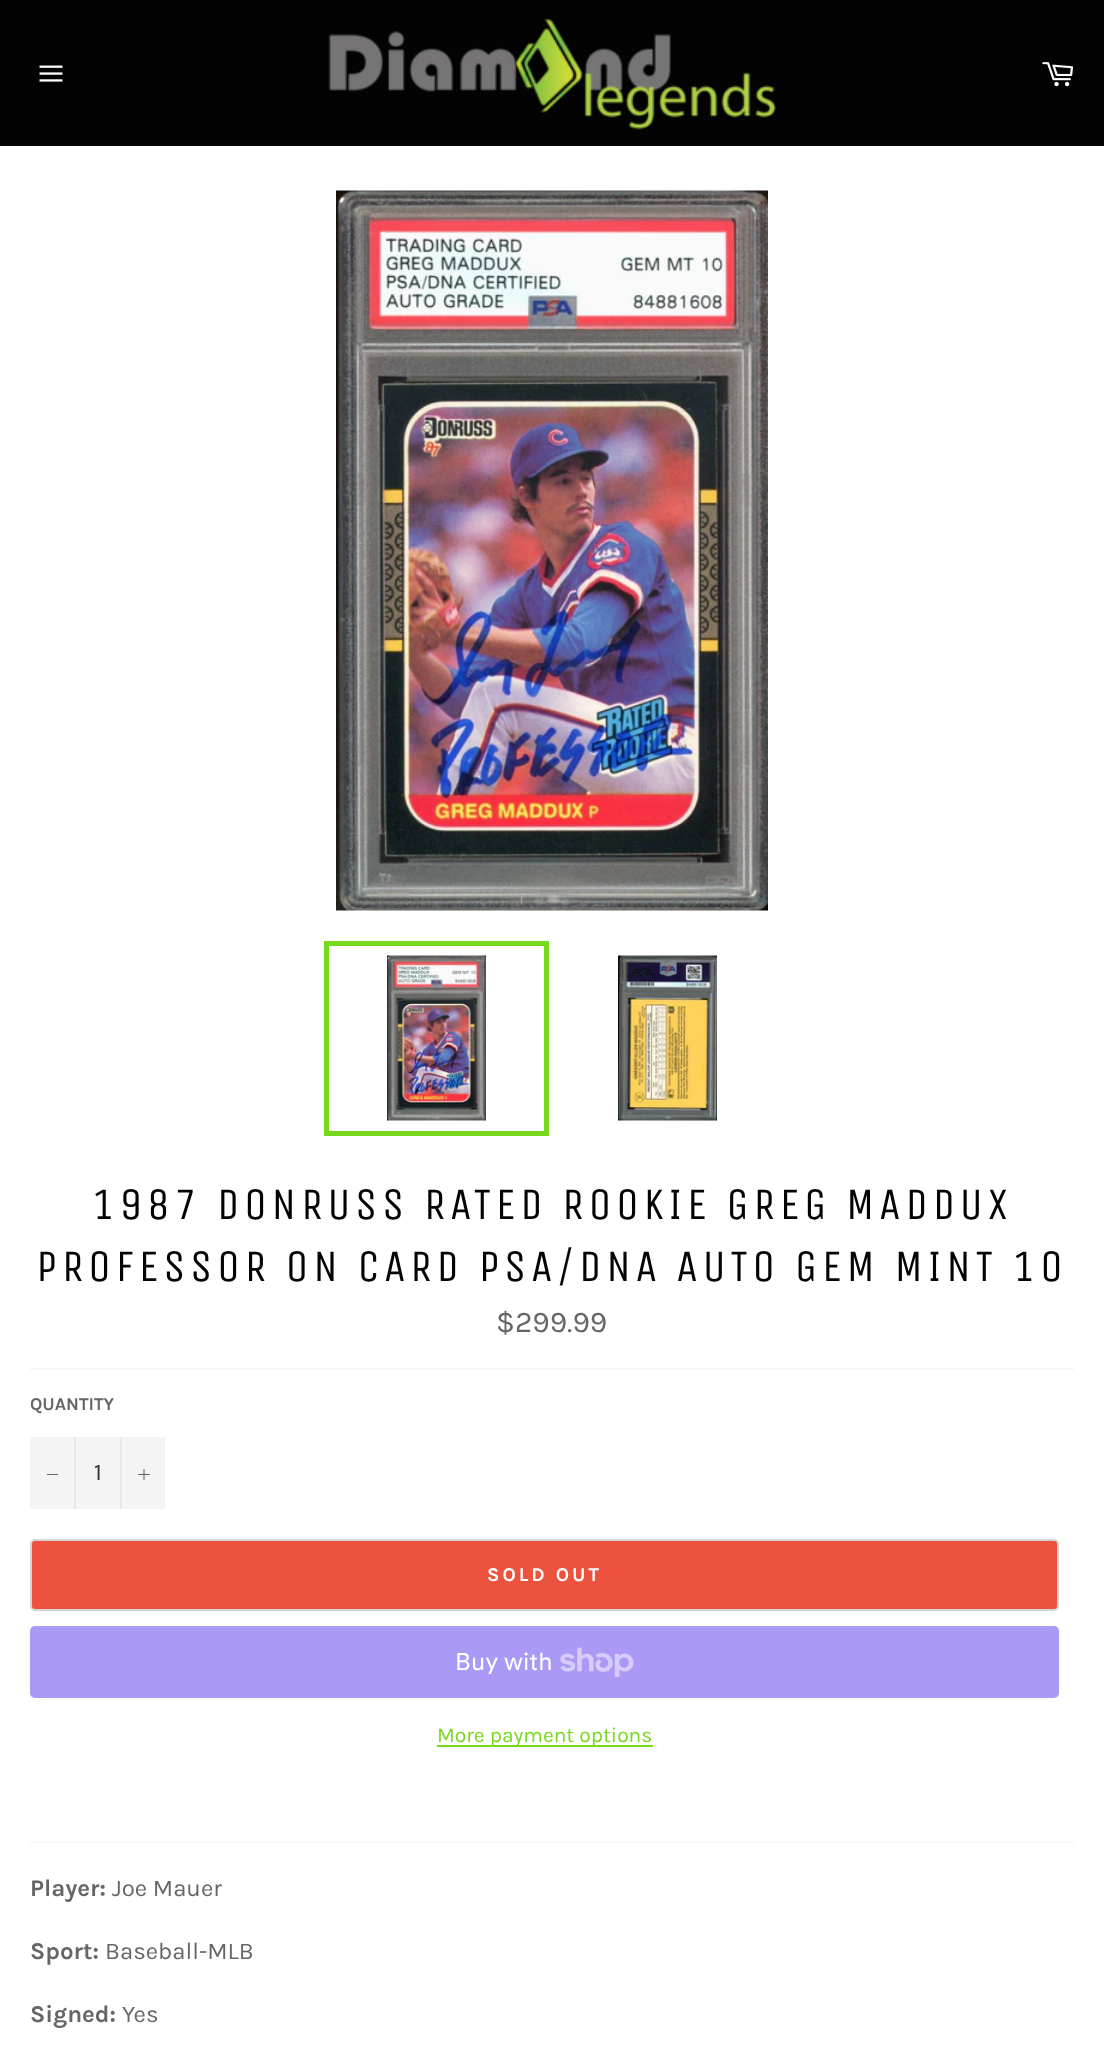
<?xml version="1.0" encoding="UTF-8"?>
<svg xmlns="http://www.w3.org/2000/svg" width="1104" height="2068">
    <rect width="100%" height="100%" fill="#030303"/>
    <image x="39" y="65" width="24" height="17" href="img_01.png"/>
    <image x="328" y="18" width="448" height="112" href="img_02.png"/>
    <image x="1042" y="62" width="31" height="25" href="img_03.png"/>
    <rect x="0" y="146" width="1104" height="1922" fill="#FFFFFF"/>
    <image x="336" y="190" width="432" height="721" href="img_04.png"/>
    <image x="387" y="955" width="99" height="166" href="img_05.png"/>
    <rect x="326.5" y="943.5" width="220" height="190" fill="none" stroke="#77D91B" stroke-width="5"/>
    <image x="618" y="955" width="99" height="166" href="img_06.png"/>
    <text x="92" y="1219" font-family="Unica One" font-size="45" letter-spacing="4.5" fill="#030303">1987 DONRUSS RATED ROOKIE GREG MADDUX</text>
    <text x="36" y="1281" font-family="Unica One" font-size="45" letter-spacing="4.5" fill="#030303">PROFESSOR ON CARD PSA/DNA AUTO GEM MINT 10</text>
    <text x="496" y="1332" font-family="Karla" font-size="30" fill="#666666">$299.99</text>
    <rect x="30" y="1368" width="1044" height="2" fill="#F7F7F7"/>
    <text x="30" y="1410" font-family="Karla" font-size="18" font-weight="700" fill="#666666">QUANTITY</text>
    <rect x="30" y="1437" width="135" height="72" fill="#F4F4F4"/>
    <rect x="74" y="1437" width="2" height="72" fill="#E7E7E7"/>
    <rect x="47" y="1474" width="11" height="1" fill="#666666"/>
    <text x="94" y="1480" font-family="Karla" font-size="24" fill="#333333">1</text>
    <rect x="120" y="1437" width="2" height="72" fill="#E7E7E7"/>
    <image x="138" y="1469" width="12" height="12" href="img_07.png"/>
    <rect x="31" y="1540" width="1027" height="70" rx="4" fill="#EC523E" stroke="#D5D5D5" stroke-width="2"/>
    <text x="487" y="1581" font-family="Karla" font-size="19.5" font-weight="700" letter-spacing="3" fill="#FFFFFF">SOLD OUT</text>
    <rect x="30" y="1626" width="1029" height="72" rx="5" fill="#AA99F5"/>
    <text x="455" y="1670" font-family="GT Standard" font-size="24" fill="#FFFFFF">Buy with</text>
    <image x="560" y="1647" width="74" height="30" href="img_08.png"/>
    <rect x="437" y="1745" width="216" height="2" fill="#77D91B"/>
    <text x="437" y="1742" font-family="Karla" font-size="21" fill="#77D91B">More payment options</text>
    <rect x="30" y="1841" width="1044" height="2" fill="#F7F7F7"/>
    <text x="30" y="1896" font-family="Karla" font-size="24" font-weight="700" fill="#666666">Player:</text>
    <text x="112" y="1896" font-family="Karla" font-size="24" fill="#666666">Joe Mauer</text>
    <text x="30" y="1959" font-family="Karla" font-size="24" font-weight="700" fill="#666666">Sport:</text>
    <text x="105" y="1959" font-family="Karla" font-size="24" fill="#666666">Baseball-MLB</text>
    <text x="30" y="2022" font-family="Karla" font-size="24" font-weight="700" fill="#666666">Signed:</text>
    <text x="122" y="2022" font-family="Karla" font-size="24" fill="#666666">Yes</text>
</svg>
